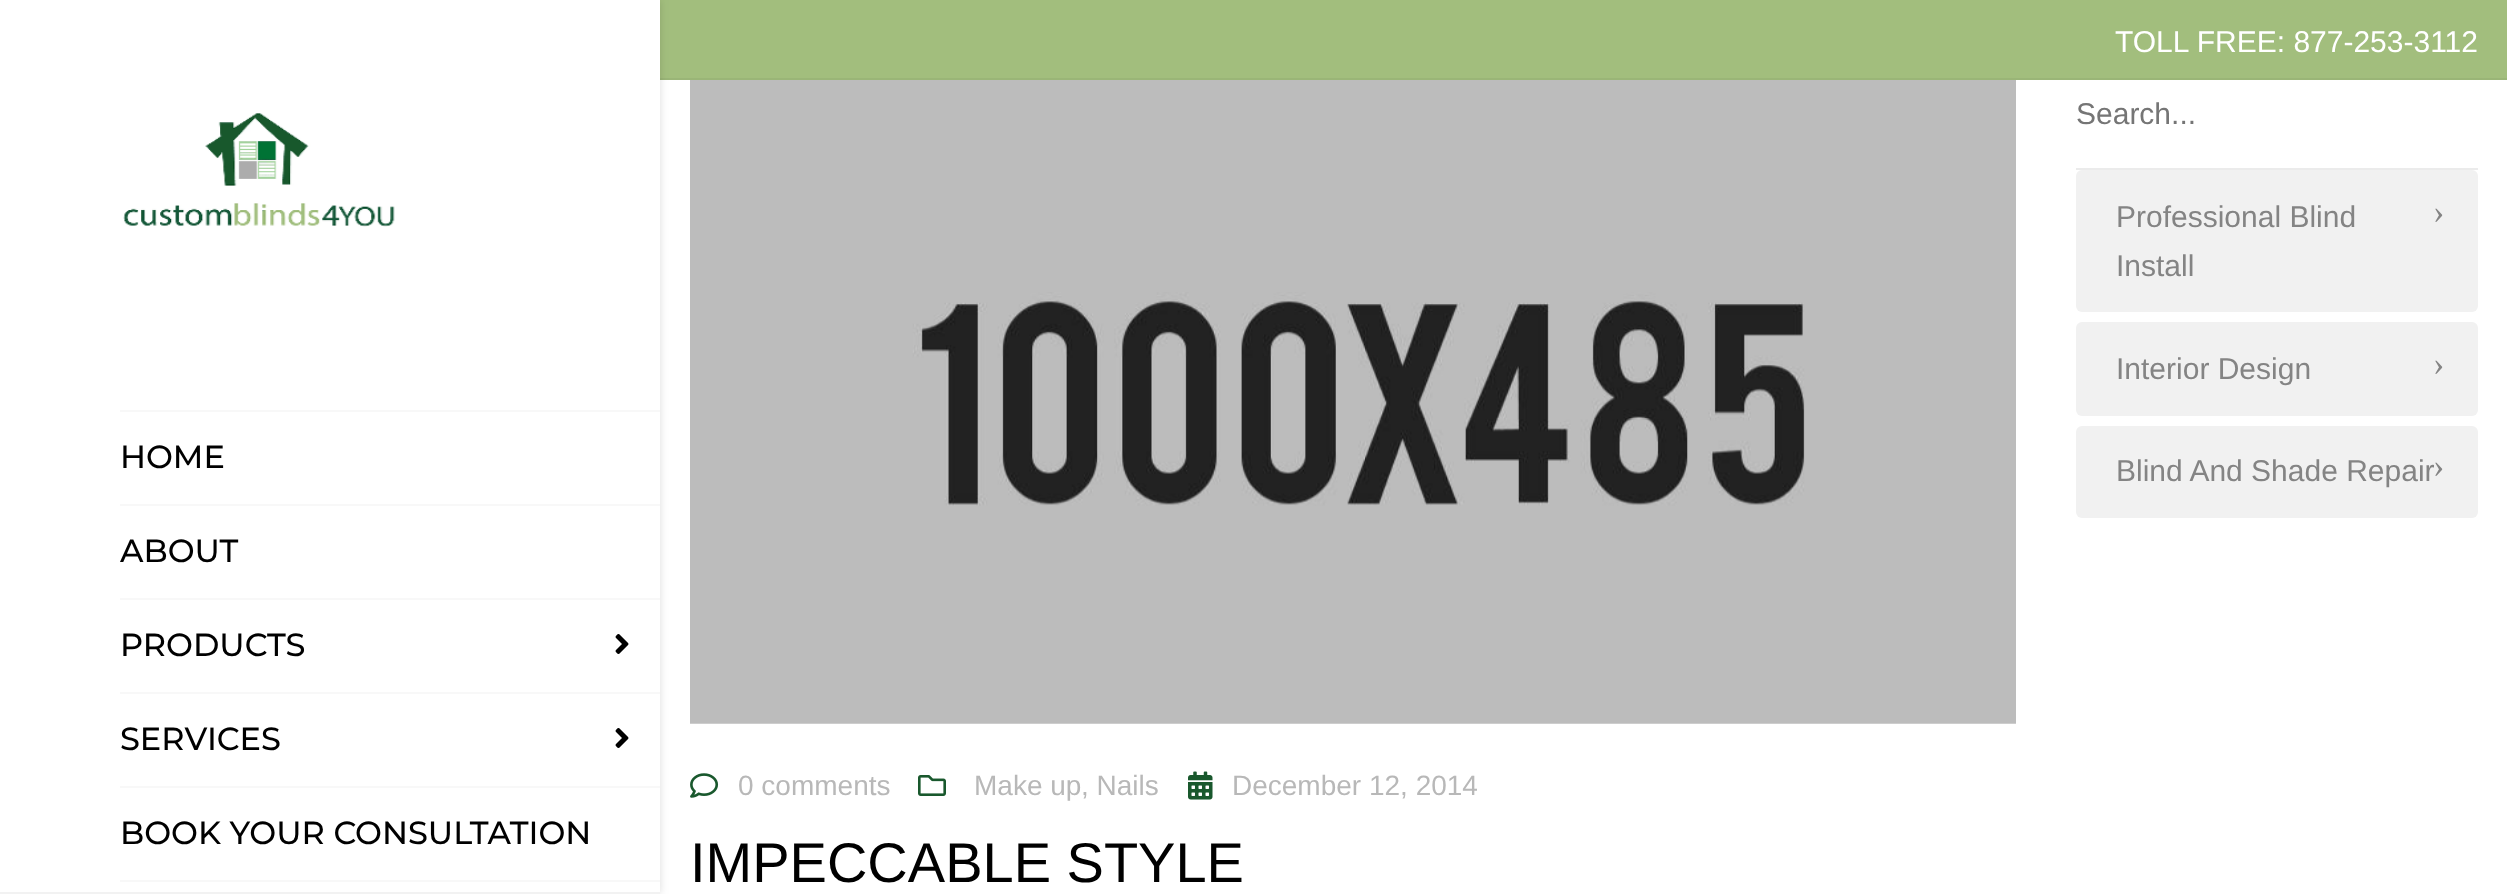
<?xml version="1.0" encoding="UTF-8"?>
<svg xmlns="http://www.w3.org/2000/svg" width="2507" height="894">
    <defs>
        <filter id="blur1" x="-50%" y="-200%" width="200%" height="500%"><feGaussianBlur stdDeviation="4"/></filter>
    </defs>
    <rect width="100%" height="100%" fill="#FFFFFF"/>
    <rect x="660" y="0" width="1847" height="78" fill="#A2BE7D"/>
    <rect x="660" y="78" width="1847" height="2" fill="#9AB577"/>
    <text x="2115" y="52" font-family="Liberation Sans" font-size="30" fill="#FFFFFF">TOLL FREE: 877-253-3112</text>
    <rect x="0" y="0" width="660" height="894" fill="#000000" fill-opacity="0.14" filter="url(#blur1)"/>
    <rect x="0" y="0" width="660" height="892" fill="#FFFFFF"/>
    <rect x="0" y="892" width="660" height="2" fill="#F2F2F2"/>
    <image x="123" y="113" width="272" height="114" href="img_01.png"/>
    <rect x="120" y="410" width="540" height="2" fill="#F8F8F8"/>
    <text x="120" y="468" font-family="Montserrat" font-size="32" font-weight="500" fill="#000000">HOME</text>
    <rect x="120" y="504" width="540" height="2" fill="#F8F8F8"/>
    <text x="120" y="562" font-family="Montserrat" font-size="32" font-weight="500" fill="#000000">ABOUT</text>
    <rect x="120" y="598" width="540" height="2" fill="#F8F8F8"/>
    <text x="120" y="656" font-family="Montserrat" font-size="32" font-weight="500" fill="#000000">PRODUCTS</text>
    <image x="615" y="634" width="14" height="20" href="img_02.png"/>
    <rect x="120" y="692" width="540" height="2" fill="#F8F8F8"/>
    <text x="120" y="750" font-family="Montserrat" font-size="32" font-weight="500" fill="#000000">SERVICES</text>
    <image x="615" y="728" width="14" height="20" href="img_02.png"/>
    <rect x="120" y="786" width="540" height="2" fill="#F8F8F8"/>
    <text x="120" y="844" font-family="Montserrat" font-size="32" font-weight="500" fill="#000000">BOOK YOUR CONSULTATION</text>
    <rect x="120" y="880" width="540" height="2" fill="#F8F8F8"/>
    <rect x="2076" y="168" width="402" height="2" fill="#EBEBEB"/>
    <text x="2076" y="124" font-family="Liberation Sans" font-size="30" fill="#757575">Search...</text>
    <rect x="2076" y="170" width="402" height="142" rx="6" fill="#F1F1F1"/>
    <text x="2116" y="227" font-family="Liberation Sans" font-size="30" fill="#848484">Professional Blind</text>
    <text x="2433" y="223" font-family="Liberation Serif" font-size="34" fill="#848484">›</text>
    <text x="2116" y="276" font-family="Liberation Sans" font-size="30" fill="#848484">Install</text>
    <rect x="2076" y="322" width="402" height="94" rx="6" fill="#F1F1F1"/>
    <text x="2116" y="379" font-family="Liberation Sans" font-size="30" fill="#848484">Interior Design</text>
    <text x="2433" y="375" font-family="Liberation Serif" font-size="34" fill="#848484">›</text>
    <rect x="2076" y="426" width="402" height="92" rx="6" fill="#F1F1F1"/>
    <text x="2116" y="481" font-family="Liberation Sans" font-size="30" fill="#848484">Blind And Shade Repair</text>
    <text x="2433" y="477" font-family="Liberation Serif" font-size="34" fill="#848484">›</text>
    <image x="690" y="80" width="1326" height="644" href="img_03.png"/>
    <image x="690" y="773" width="29" height="25" href="img_04.png"/>
    <text x="738" y="795" font-family="Liberation Sans" font-size="28" fill="#B8B8B8">0 comments</text>
    <image x="918" y="775" width="28" height="21" href="img_05.png"/>
    <text x="974" y="795" font-family="Liberation Sans" font-size="28" fill="#B8B8B8">Make up</text>
    <text x="1081" y="795" font-family="Liberation Sans" font-size="28" fill="#B8B8B8">, Nails</text>
    <image x="1188" y="771" width="25" height="29" href="img_06.png"/>
    <text x="1232" y="795" font-family="Liberation Sans" font-size="28" fill="#B8B8B8">December 12, 2014</text>
    <text x="690" y="882" font-family="Liberation Sans" font-size="56" fill="#000000">IMPECCABLE STYLE</text>
</svg>
